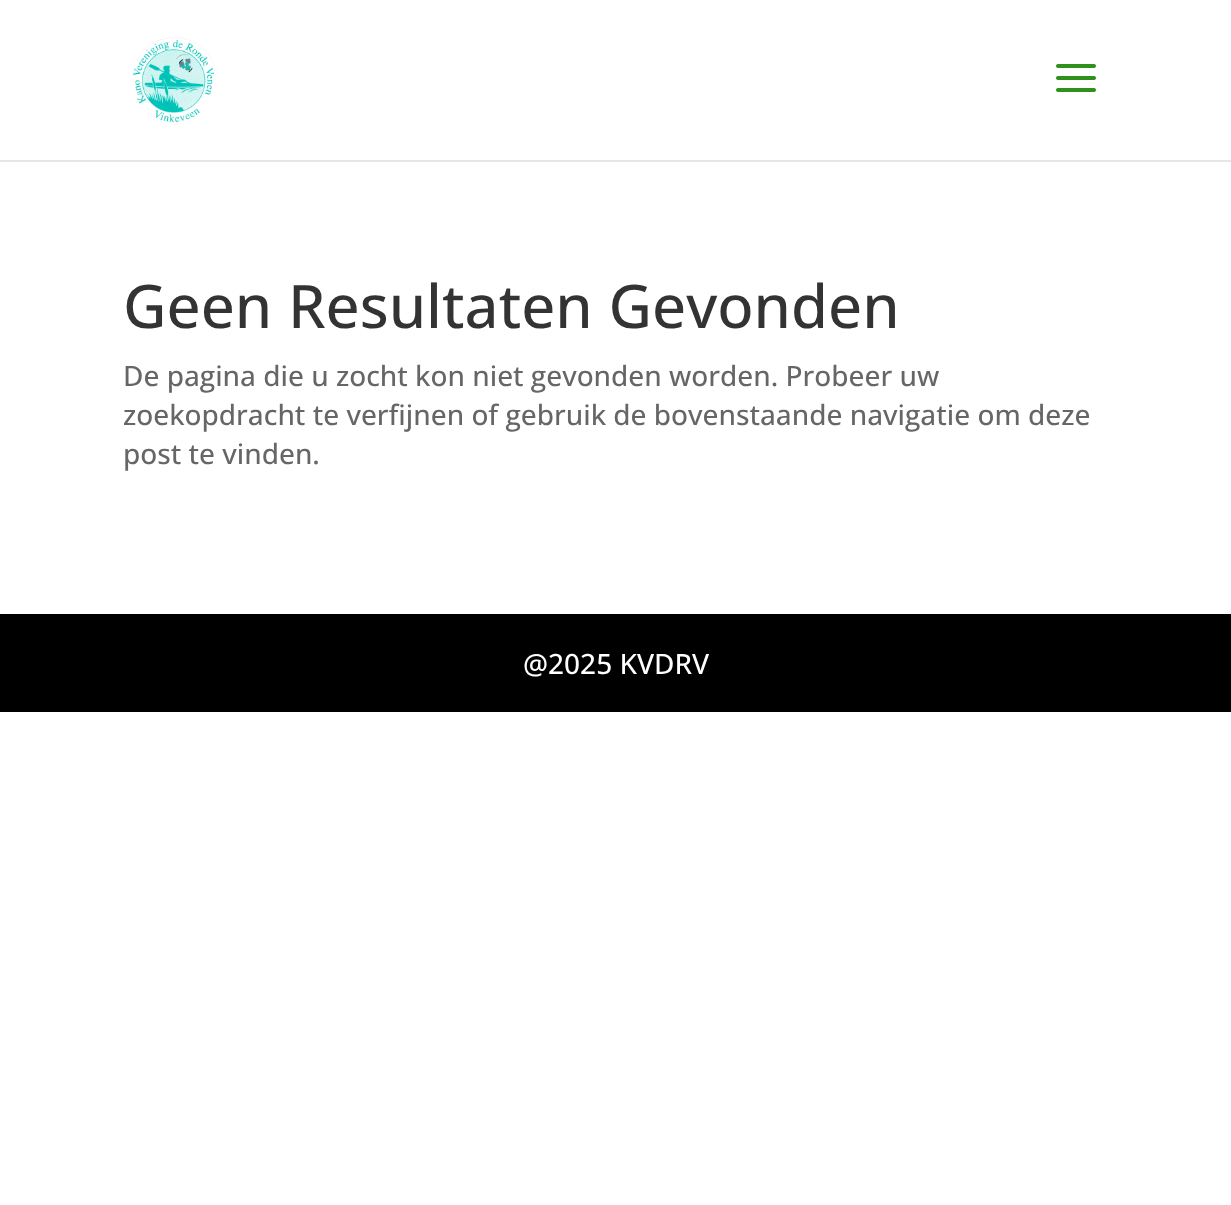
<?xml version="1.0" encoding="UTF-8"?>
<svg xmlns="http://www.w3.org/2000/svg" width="1231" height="1205">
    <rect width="100%" height="100%" fill="#FFFFFF"/>
    <rect x="0" y="160" width="1231" height="2" fill="#E6E6E6"/>
    <image x="132" y="37" width="84" height="87" href="img_01.png"/>
    <image x="1056" y="64" width="40" height="28" href="img_02.png"/>
    <text x="123" y="328" font-family="Open Sans" font-size="60" font-weight="500" fill="#333333">Geen Resultaten Gevonden</text>
    <text font-family="Open Sans" font-size="28" font-weight="500" fill="#666666">
        <tspan x="123" y="386">De pagina die u zocht kon niet gevonden worden. Probeer uw</tspan>
        <tspan x="123" y="425">zoekopdracht te verfijnen of gebruik de bovenstaande navigatie om deze</tspan>
        <tspan x="123" y="464">post te vinden.</tspan>
    </text>
    <rect x="0" y="614" width="1231" height="98" fill="#000000"/>
    <text x="523" y="674" font-family="Open Sans" font-size="28" font-weight="500" fill="#FFFFFF">@2025 KVDRV</text>
</svg>
